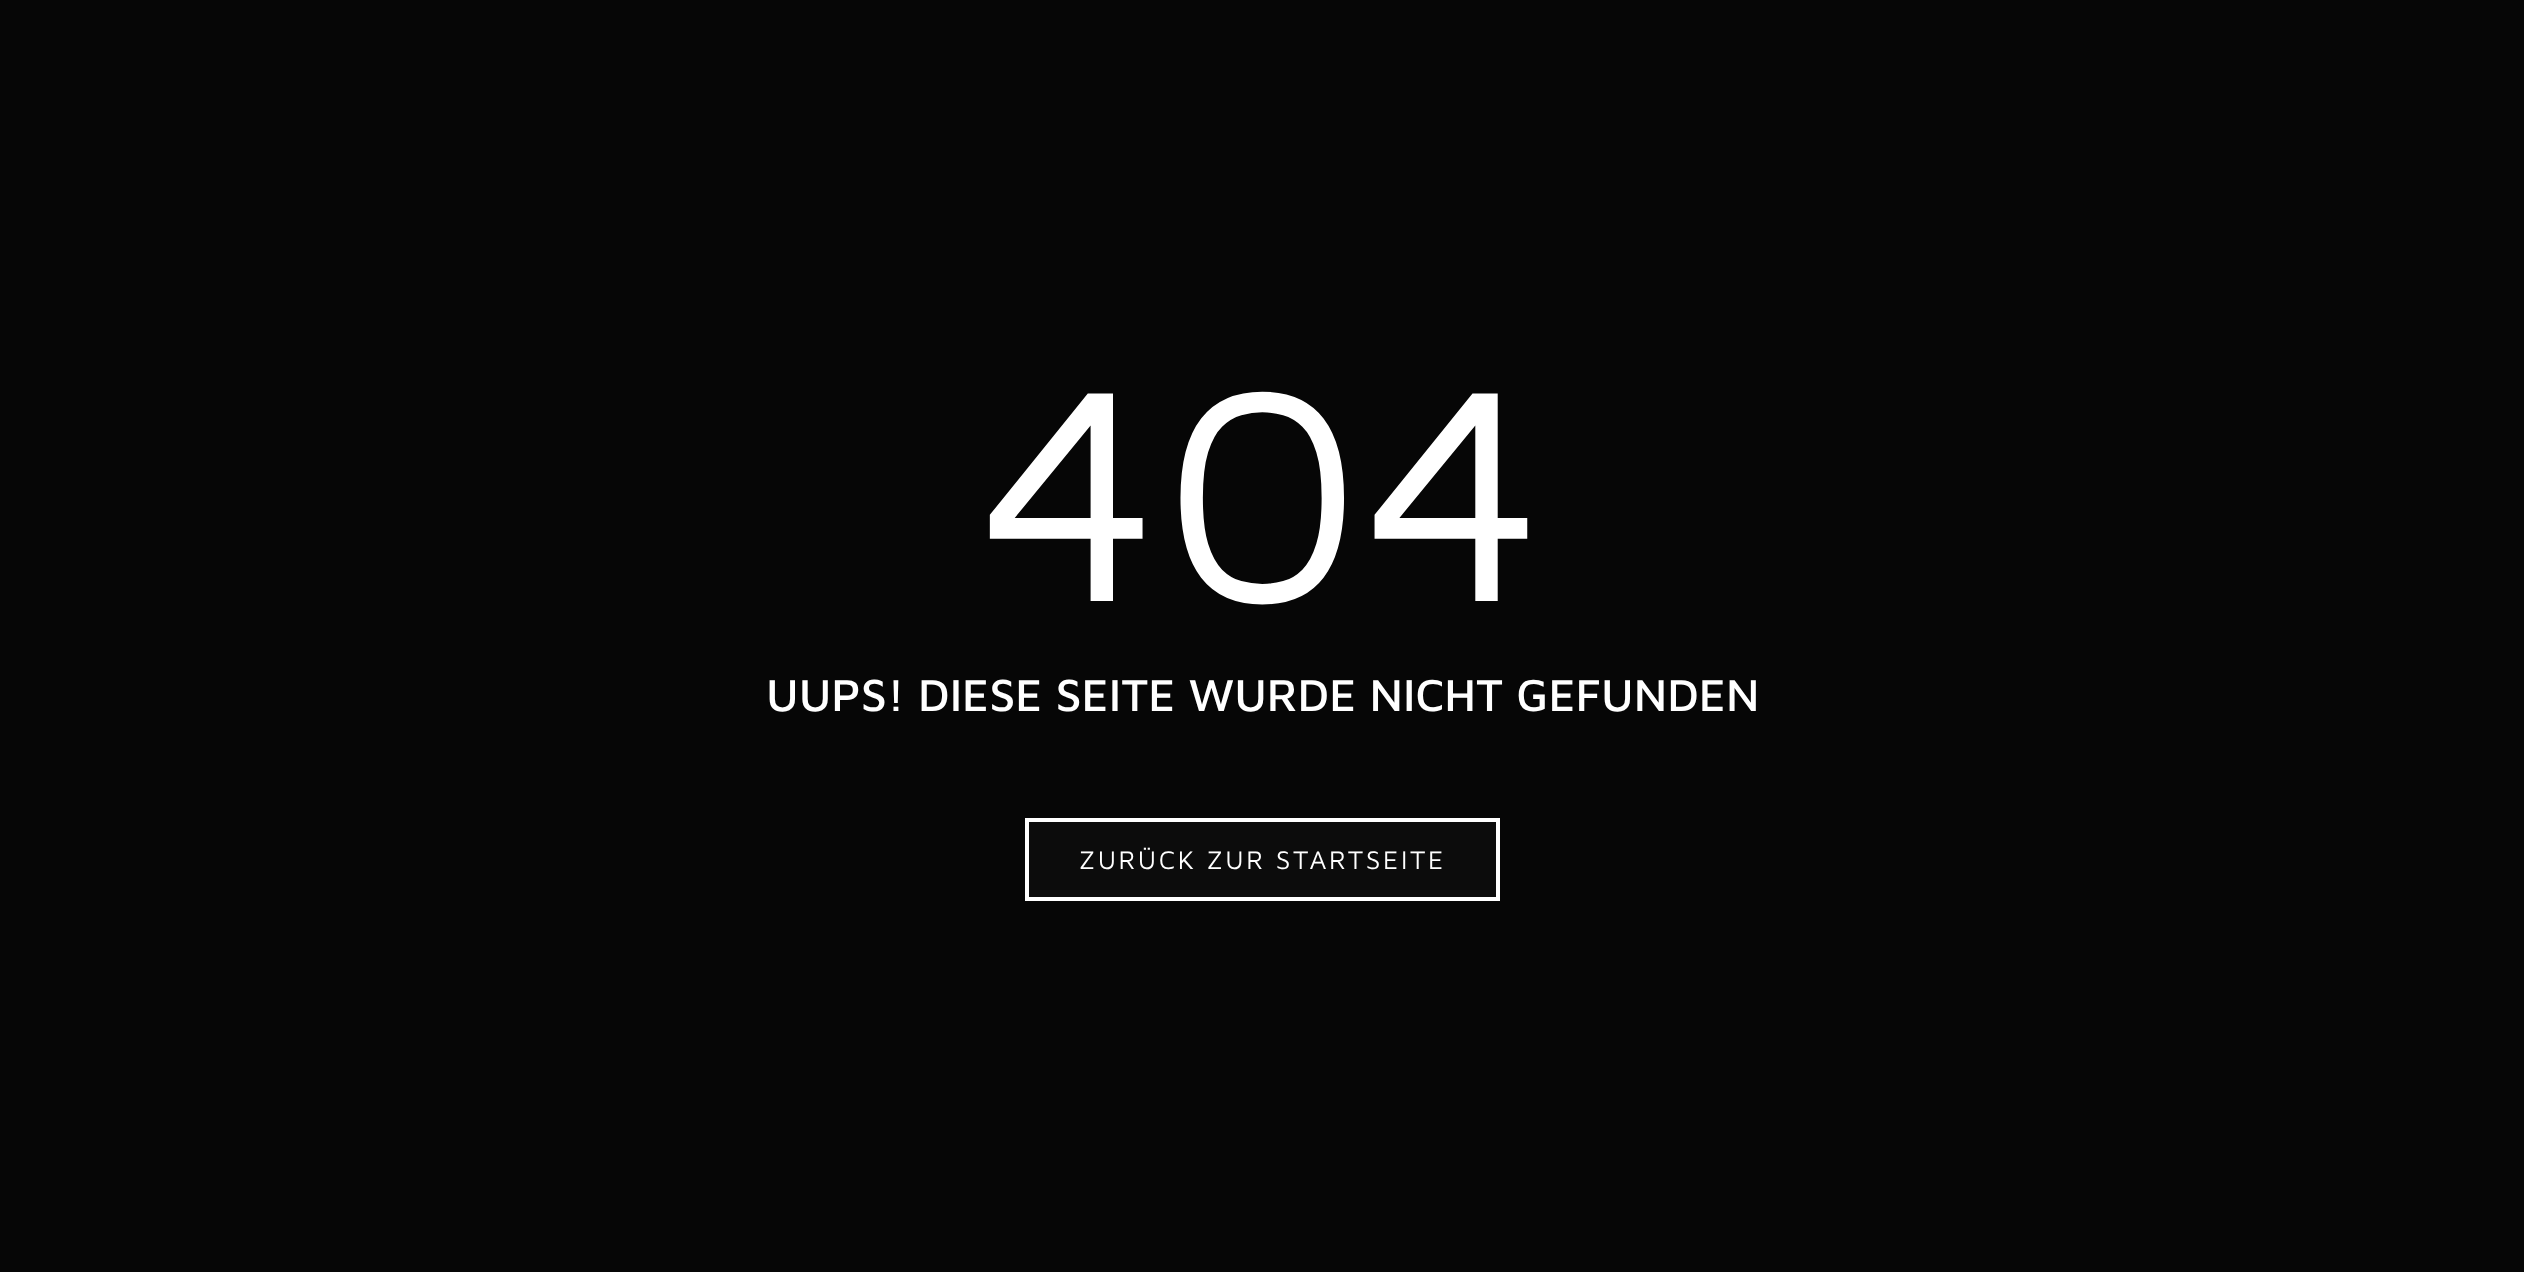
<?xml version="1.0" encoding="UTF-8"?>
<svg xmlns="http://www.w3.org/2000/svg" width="2524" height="1272">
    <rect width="100%" height="100%" fill="#060606"/>
    <text x="978" y="601" font-family="Maven Pro" font-size="311" fill="#FFFFFF">404</text>
    <text x="766" y="711" font-family="Maven Pro" font-size="46.25" font-weight="500" fill="#FFFFFF">UUPS! DIESE SEITE WURDE NICHT GEFUNDEN</text>
    <rect x="1027" y="820" width="471" height="79" fill="#0C0C0C" stroke="#FFFFFF" stroke-width="4"/>
    <text x="1079" y="869" font-family="Maven Pro" font-size="26.4" letter-spacing="2.6" fill="#FFFFFF">ZURÜCK ZUR STARTSEITE</text>
</svg>
